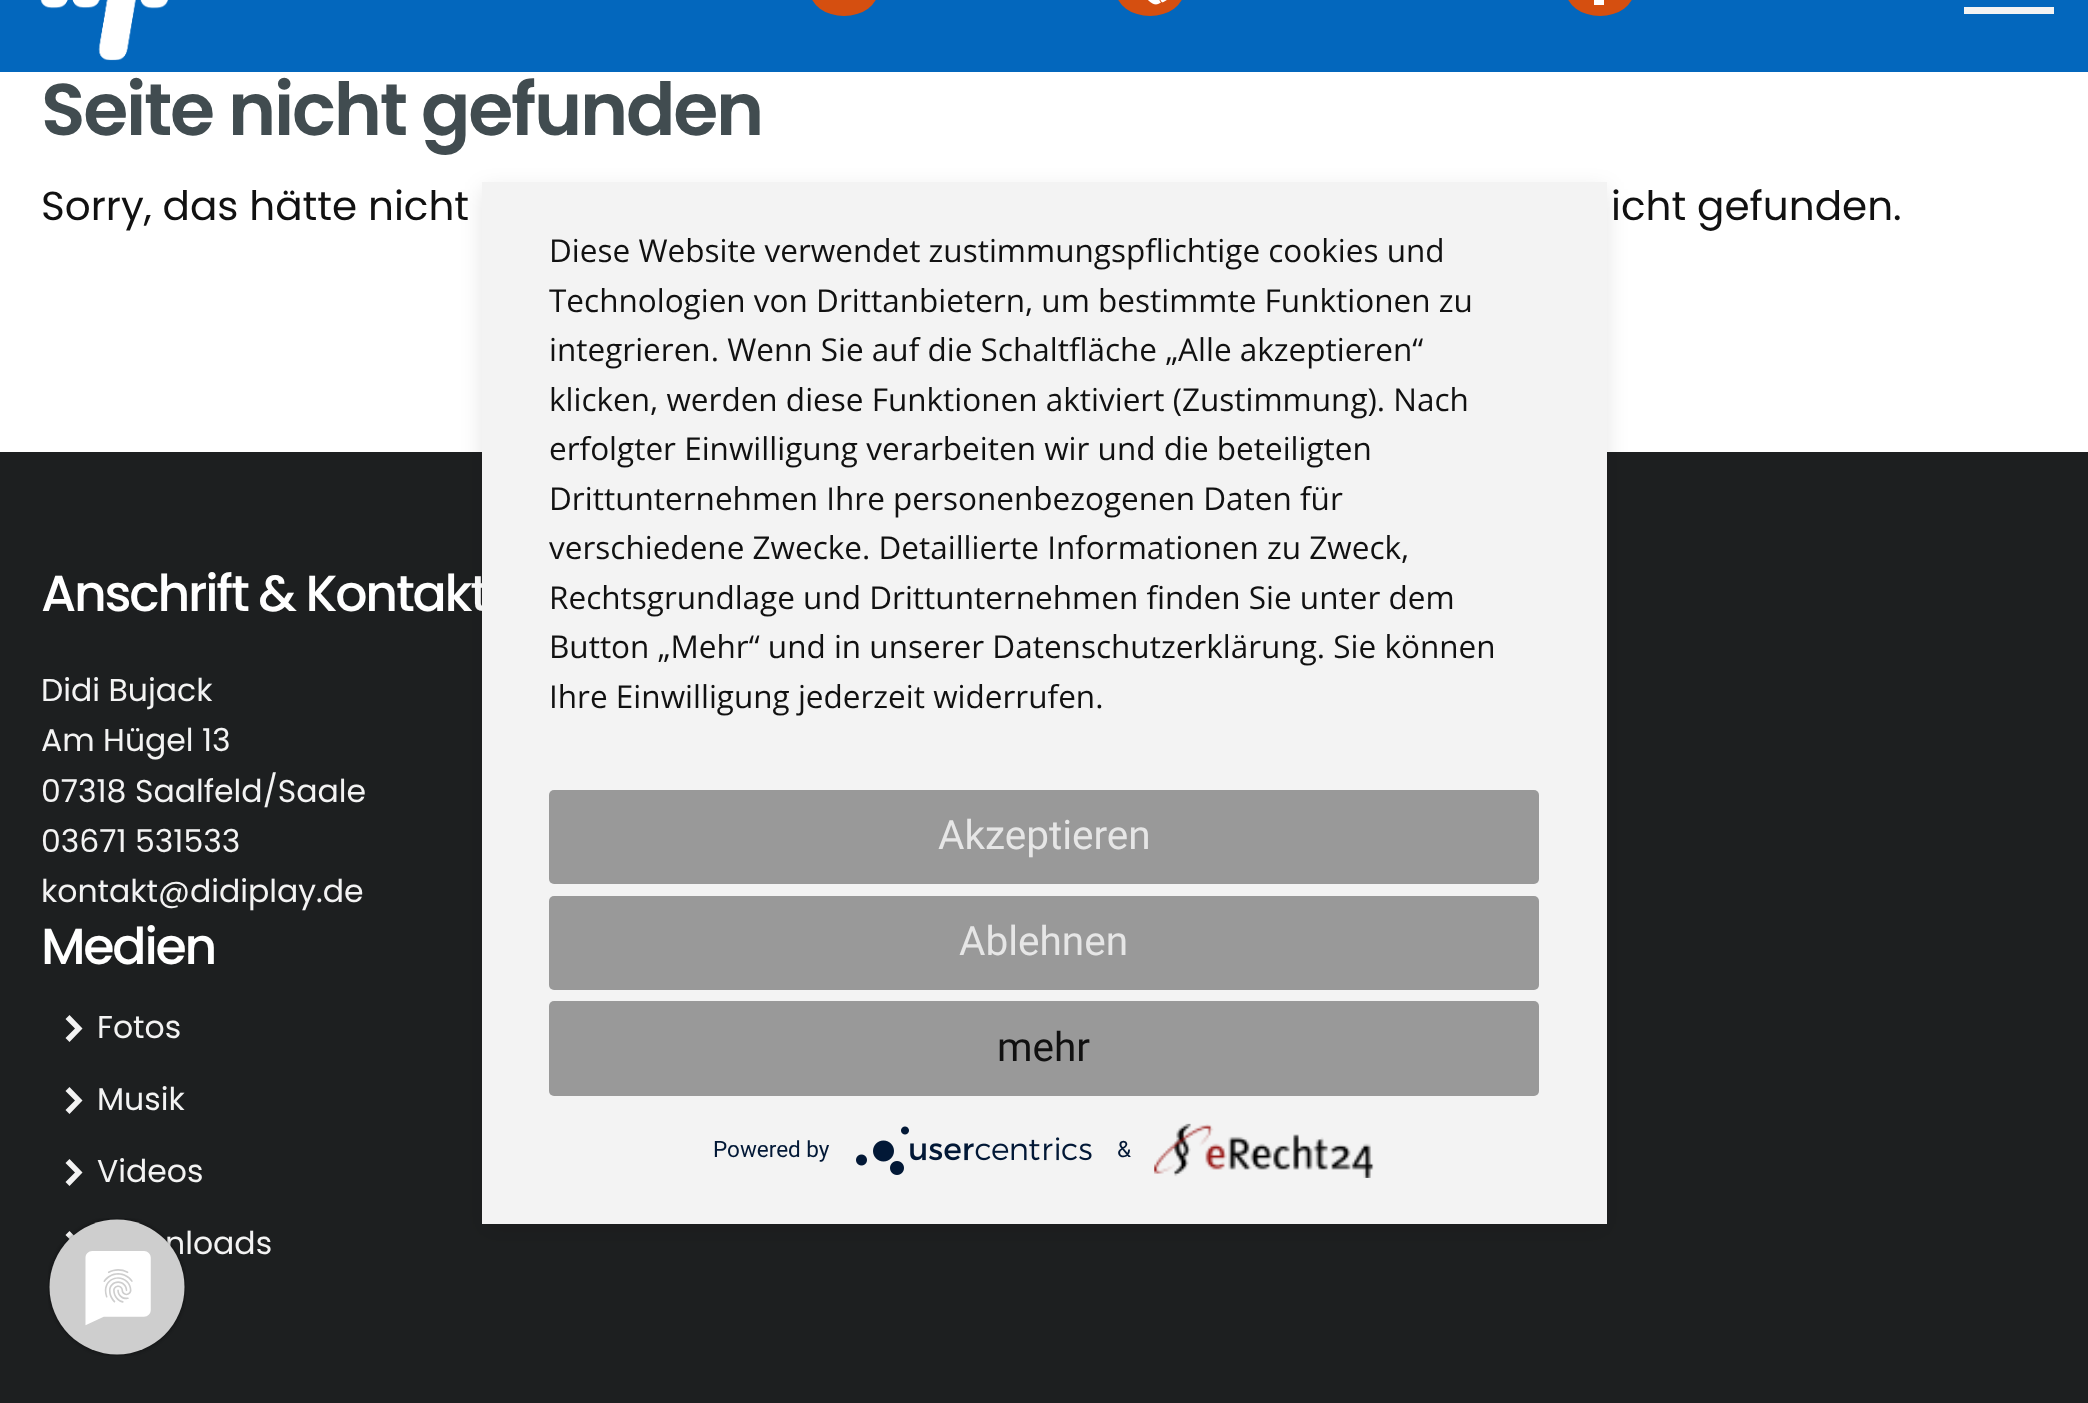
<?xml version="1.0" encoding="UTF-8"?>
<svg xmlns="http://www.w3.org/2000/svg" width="2088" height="1403">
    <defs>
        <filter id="blur1" x="-50%" y="-200%" width="200%" height="500%"><feGaussianBlur stdDeviation="11"/></filter>
    </defs>
    <rect width="100%" height="100%" fill="#FFFFFF"/>
    <rect x="0" y="0" width="2088" height="72" fill="#0367BD"/>
    <rect x="810" y="-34" width="68" height="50" rx="34" fill="#D54F10"/>
    <rect x="1116" y="-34" width="68" height="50" rx="34" fill="#D54F10"/>
    <image x="1148" y="0" width="19" height="5" href="img_01.png"/>
    <rect x="1566" y="-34" width="68" height="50" rx="34" fill="#D54F10"/>
    <rect x="1594" y="0" width="10" height="5" fill="#FFFFFF"/>
    <image x="40" y="0" width="129" height="61" href="img_02.png"/>
    <rect x="1964" y="7" width="90" height="7" fill="#F3F3F3"/>
    <text x="41" y="135" font-family="Poppins" font-size="73" font-weight="600" letter-spacing="-2.25" fill="#414C50">Seite nicht gefunden</text>
    <text x="41" y="220" font-family="Poppins" font-size="40.5" fill="#111111">Sorry, das hätte nicht</text>
    <text x="1611" y="220" font-family="Poppins" font-size="40.5" fill="#111111">icht gefunden.</text>
    <rect x="0" y="452" width="2088" height="951" fill="#1D1F20"/>
    <text x="41" y="611" font-family="Poppins" font-size="50.6" font-weight="500" letter-spacing="-2.25" fill="#FFFFFF">Anschrift &amp; Kontakt</text>
    <text font-family="Poppins" font-size="31.5" fill="#F3F3F3">
        <tspan x="41" y="701">Didi Bujack</tspan>
        <tspan x="41" y="751">Am Hügel 13</tspan>
        <tspan x="41" y="802">07318 Saalfeld/Saale</tspan>
        <tspan x="41" y="852">03671 531533</tspan>
        <tspan x="41" y="902">kontakt@didiplay.de</tspan>
    </text>
    <text x="41" y="964" font-family="Poppins" font-size="50.6" font-weight="500" letter-spacing="-2.25" fill="#FFFFFF">Medien</text>
    <path d="M 69.5 1042 L 82.5 1028.5 L 69.5 1015 L 65.5 1019 L 75 1028.5 L 65.5 1038 Z" fill="#F3F3F3"/>
    <text x="97" y="1038" font-family="Poppins" font-size="31.5" fill="#F3F3F3">Fotos</text>
    <path d="M 69.5 1114 L 82.5 1100.5 L 69.5 1087 L 65.5 1091 L 75 1100.5 L 65.5 1110 Z" fill="#F3F3F3"/>
    <text x="97" y="1110" font-family="Poppins" font-size="31.5" fill="#F3F3F3">Musik</text>
    <path d="M 69.5 1186 L 82.5 1172.5 L 69.5 1159 L 65.5 1163 L 75 1172.5 L 65.5 1182 Z" fill="#F3F3F3"/>
    <text x="97" y="1182" font-family="Poppins" font-size="31.5" fill="#F3F3F3">Videos</text>
    <path d="M 69.5 1258 L 82.5 1244.5 L 69.5 1231 L 65.5 1235 L 75 1244.5 L 65.5 1254 Z" fill="#F3F3F3"/>
    <text x="165" y="1254" font-family="Poppins" font-size="31.5" fill="#F3F3F3">nloads</text>
    <rect x="482" y="189" width="1125" height="1042" fill="#000000" fill-opacity="0.1" filter="url(#blur1)"/>
    <rect x="482" y="182" width="1125" height="1042" fill="#F3F3F3"/>
    <text font-family="Open Sans" font-size="31.5" fill="#111111">
        <tspan x="549" y="262">Diese Website verwendet zustimmungspflichtige cookies und</tspan>
        <tspan x="549" y="312">Technologien von Drittanbietern, um bestimmte Funktionen zu</tspan>
        <tspan x="549" y="361">integrieren. Wenn Sie auf die Schaltfläche „Alle akzeptieren“</tspan>
        <tspan x="549" y="411">klicken, werden diese Funktionen aktiviert (Zustimmung). Nach</tspan>
        <tspan x="549" y="460">erfolgter Einwilligung verarbeiten wir und die beteiligten</tspan>
        <tspan x="549" y="510">Drittunternehmen Ihre personenbezogenen Daten für</tspan>
        <tspan x="549" y="559">verschiedene Zwecke. Detaillierte Informationen zu Zweck,</tspan>
        <tspan x="549" y="609">Rechtsgrundlage und Drittunternehmen finden Sie unter dem</tspan>
        <tspan x="549" y="658">Button „Mehr“ und in unserer Datenschutzerklärung. Sie können</tspan>
        <tspan x="549" y="708">Ihre Einwilligung jederzeit widerrufen.</tspan>
    </text>
    <rect x="549" y="790" width="990" height="94" rx="5" fill="#999999"/>
    <text x="938" y="849" font-family="Roboto" font-size="40.5" fill="#E6E6E6">Akzeptieren</text>
    <rect x="549" y="896" width="990" height="94" rx="5" fill="#999999"/>
    <text x="959" y="955" font-family="Roboto" font-size="40.5" fill="#E6E6E6">Ablehnen</text>
    <rect x="549" y="1001" width="990" height="95" rx="5" fill="#999999"/>
    <text x="997" y="1061" font-family="Roboto" font-size="40.5" fill="#111111">mehr</text>
    <text x="713" y="1157" font-family="Roboto" font-size="22.5" fill="#021836">Powered by</text>
    <image x="856" y="1126" width="236" height="49" href="img_03.png"/>
    <text x="1117" y="1157" font-family="Roboto" font-size="22.5" fill="#021836">&amp;</text>
    <image x="1154" y="1123" width="220" height="55" href="img_04.png"/>
    <image x="48" y="1218" width="138" height="138" href="img_05.png"/>
</svg>
